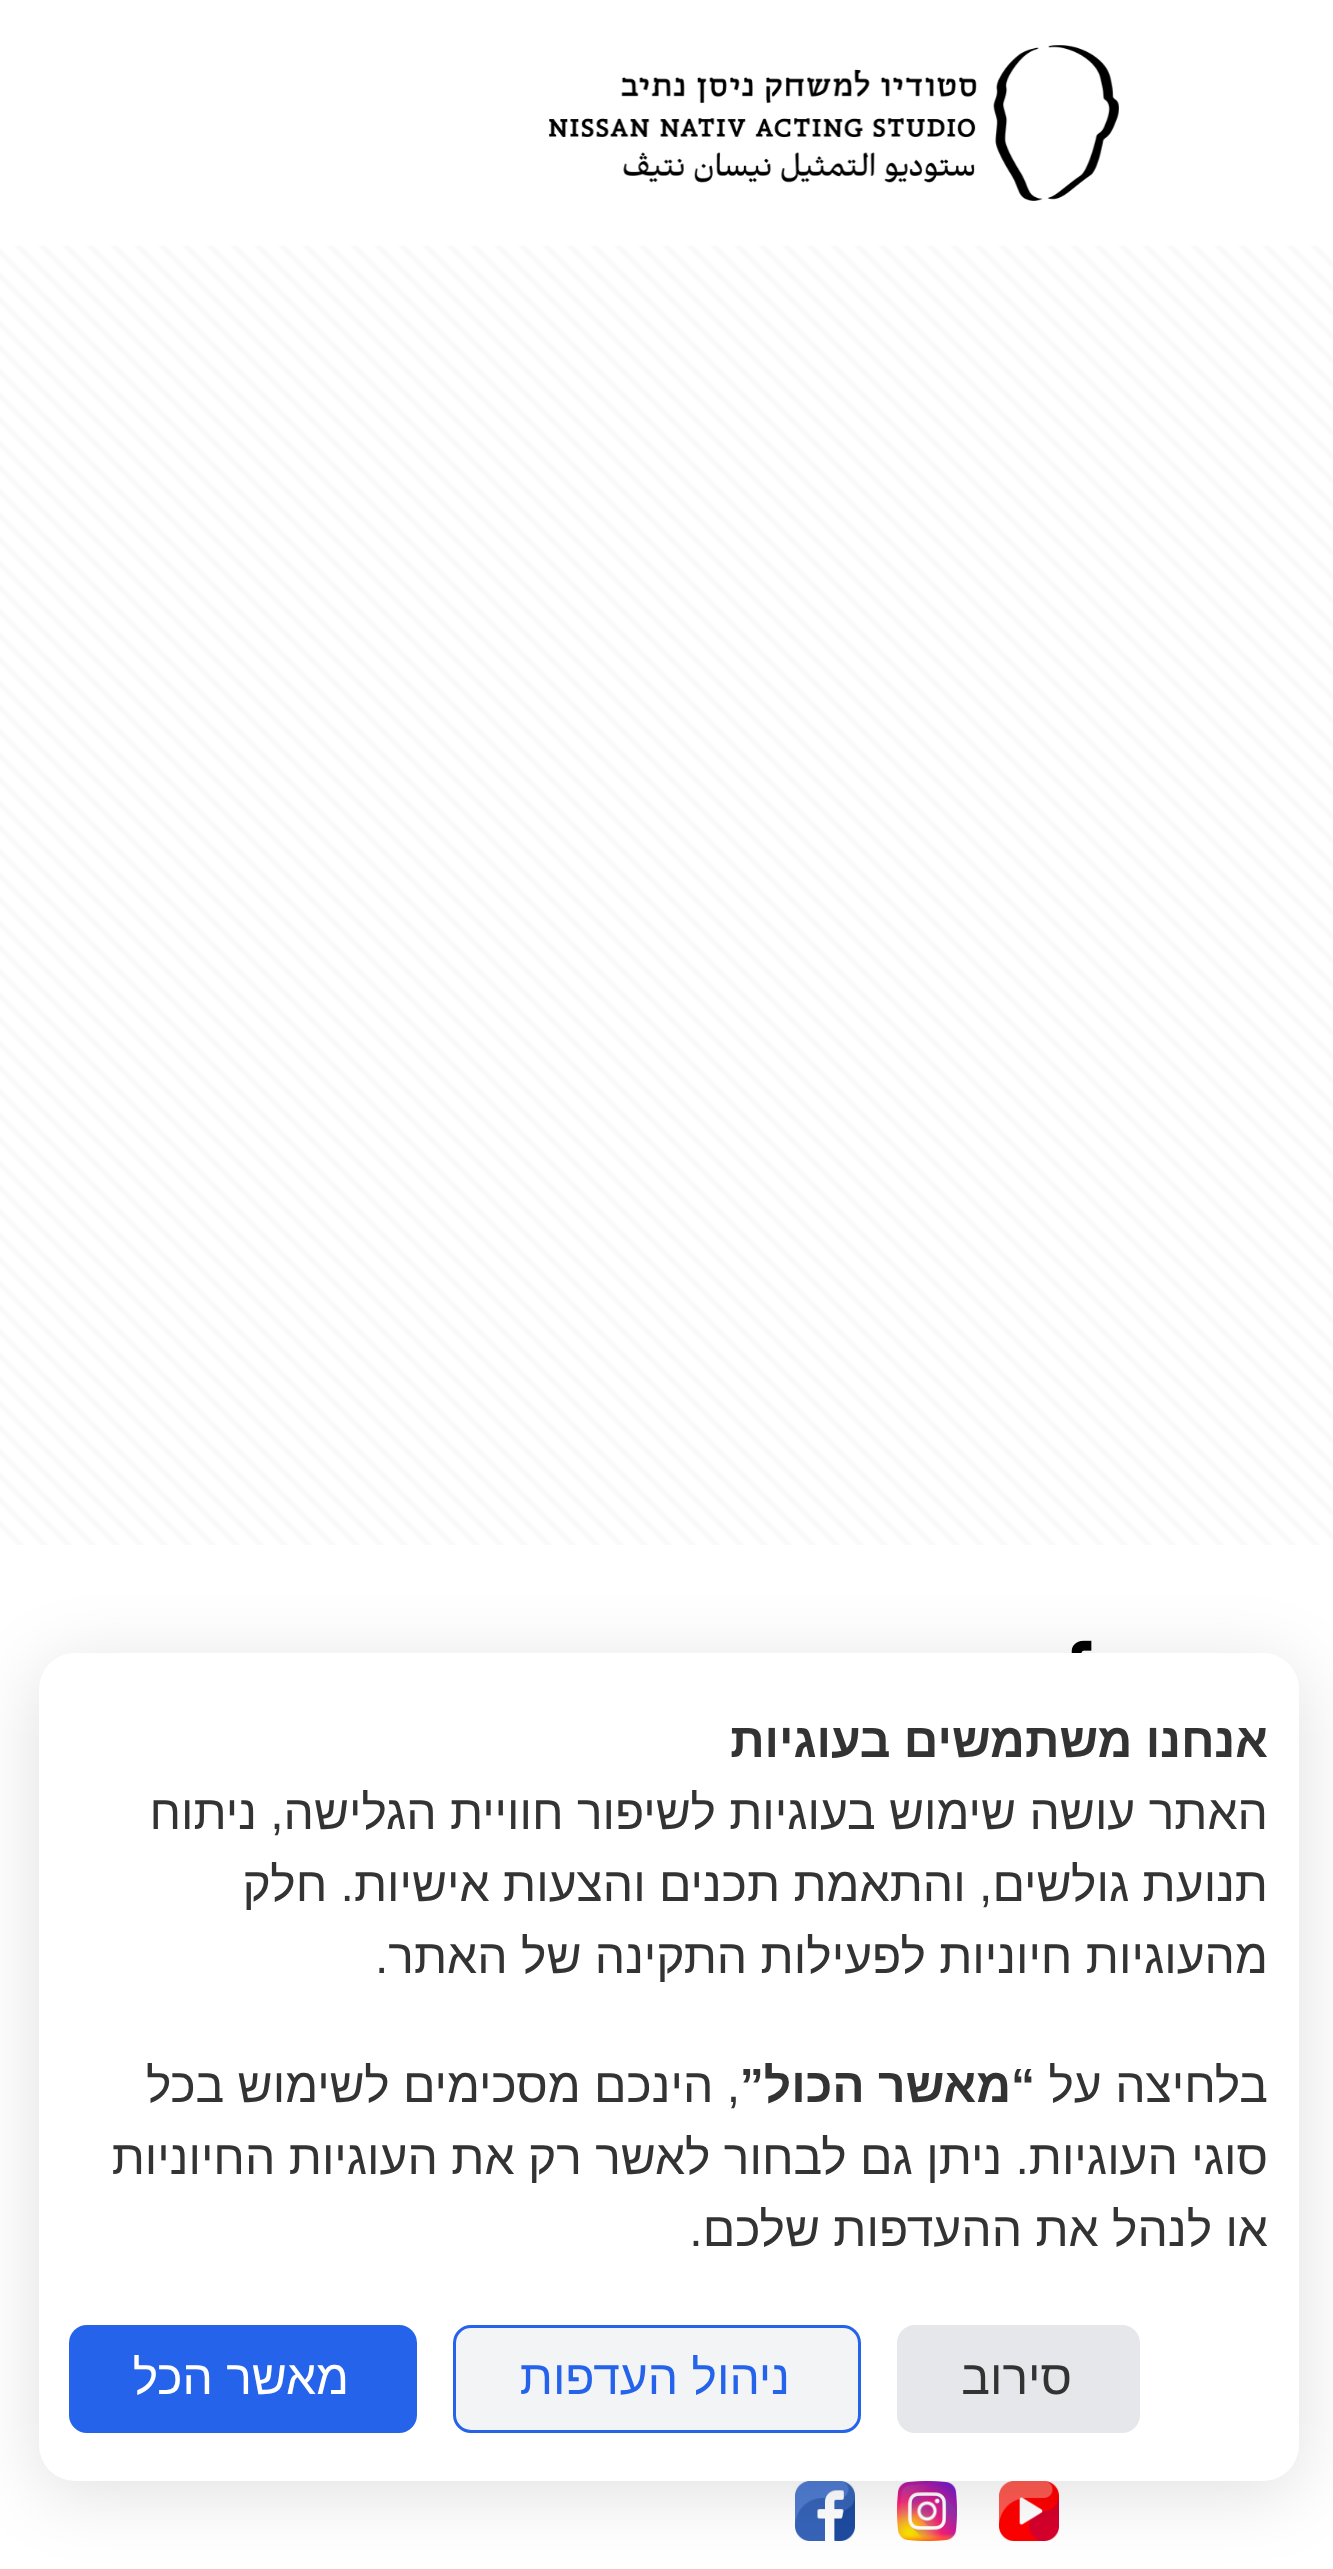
<?xml version="1.0" encoding="UTF-8"?>
<svg xmlns="http://www.w3.org/2000/svg" width="1333" height="2569">
    <defs>
        <filter id="blur1" x="-50%" y="-200%" width="200%" height="500%"><feGaussianBlur stdDeviation="36"/></filter>
    </defs>
    <rect width="100%" height="100%" fill="#FFFFFF"/>
    <image x="549" y="45" width="570" height="156" href="img_01.png"/>
    <image x="0" y="246" width="1333" height="1299" href="img_02.png"/>
    <image x="1071" y="1640" width="21" height="13" href="img_03.png"/>
    <image x="999" y="2481" width="60" height="60" href="img_04.png"/>
    <image x="897" y="2481" width="60" height="60" href="img_05.png"/>
    <image x="795" y="2481" width="60" height="60" href="img_06.png"/>
    <rect x="39" y="1665" width="1260" height="828" rx="36" fill="#000000" fill-opacity="0.12" filter="url(#blur1)"/>
    <rect x="39" y="1653" width="1260" height="828" rx="36" fill="#FFFFFF"/>
    <text x="1268" y="1757" font-family="Liberation Sans" font-size="48" font-weight="700" direction="rtl" fill="#333333">אנחנו משתמשים בעוגיות</text>
    <text font-family="Liberation Sans" font-size="48" direction="rtl" fill="#333333">
        <tspan x="1268" y="1829">האתר עושה שימוש בעוגיות לשיפור חוויית הגלישה, ניתוח</tspan>
        <tspan x="1268" y="1901">תנועת גולשים, והתאמת תכנים והצעות אישיות. חלק</tspan>
        <tspan x="1268" y="1973">מהעוגיות חיוניות לפעילות התקינה של האתר.</tspan>
    </text>
    <text x="1268" y="2102" font-family="Liberation Sans" font-size="48" direction="rtl" fill="#333333">בלחיצה על</text>
    <text x="1035" y="2102" font-family="Liberation Sans" font-size="48" font-weight="700" direction="rtl" fill="#333333">“מאשר הכול”</text>
    <text x="740" y="2102" font-family="Liberation Sans" font-size="48" direction="rtl" fill="#333333">, הינכם מסכימים לשימוש בכל</text>
    <text font-family="Liberation Sans" font-size="48" direction="rtl" fill="#333333">
        <tspan x="1268" y="2174">סוגי העוגיות. ניתן גם לבחור לאשר רק את העוגיות החיוניות</tspan>
        <tspan x="1268" y="2246">או לנהל את ההעדפות שלכם.</tspan>
    </text>
    <rect x="897" y="2325" width="243" height="108" rx="18" fill="#E5E7EB"/>
    <text x="1072" y="2394" font-family="Liberation Sans" font-size="48" direction="rtl" fill="#333333">סירוב</text>
    <rect x="454.5" y="2326.5" width="405" height="105" rx="16.5" fill="#F3F4F6" stroke="#2563EB" stroke-width="3"/>
    <text x="790" y="2394" font-family="Liberation Sans" font-size="48" direction="rtl" fill="#2563EB">ניהול העדפות</text>
    <rect x="69" y="2325" width="348" height="108" rx="18" fill="#2563EB"/>
    <text x="349" y="2394" font-family="Liberation Sans" font-size="48" direction="rtl" fill="#FFFFFF">מאשר הכל</text>
</svg>
